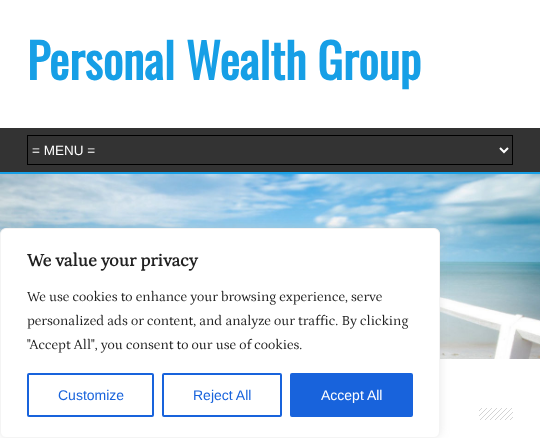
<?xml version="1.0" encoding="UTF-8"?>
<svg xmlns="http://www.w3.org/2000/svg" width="540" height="438">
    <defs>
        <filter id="blur1" x="-50%" y="-200%" width="200%" height="500%"><feGaussianBlur stdDeviation="5"/></filter>
    </defs>
    <rect width="100%" height="100%" fill="#FFFFFF"/>
    <text x="27" y="80" font-family="Oswald" font-size="48" font-weight="700" fill="#169FE6">Personal Wealth Group</text>
    <rect x="0" y="128" width="540" height="44" fill="#333333"/>
    <rect x="0" y="172" width="540" height="2" fill="#169FE6"/>
    <rect x="27.5" y="135.5" width="485" height="29" fill="none" stroke="#000000"/>
    <path d="M 500 148 L 504 152 L 508 148" fill="none" stroke="#FFFFFF" stroke-width="2"/>
    <text x="32" y="155" font-family="Liberation Sans" font-size="13.5" fill="#FFFFFF">= MENU =</text>
    <image x="0" y="174" width="540" height="185" href="img_01.png"/>
    <image x="479" y="408" width="34" height="12" href="img_02.png"/>
    <rect x="0" y="227" width="440" height="210" rx="6" fill="#ACABAB" fill-opacity="0.3" filter="url(#blur1)"/>
    <rect x="0.5" y="228.5" width="439" height="209" rx="5.5" fill="#FFFFFF" stroke="#F4F4F4"/>
    <text x="27" y="266" font-family="Petrona" font-size="18" font-weight="700" fill="#212121">We value your privacy</text>
    <text font-family="Petrona" font-size="14" fill="#212121">
        <tspan x="27" y="301">We use cookies to enhance your browsing experience, serve</tspan>
        <tspan x="27" y="325">personalized ads or content, and analyze our traffic. By clicking</tspan>
        <tspan x="27" y="349">"Accept All", you consent to our use of cookies.</tspan>
    </text>
    <rect x="28" y="374" width="125" height="42" rx="1" fill="none" stroke="#1863DC" stroke-width="2"/>
    <text x="58" y="400" font-family="Liberation Sans" font-size="14" fill="#1863DC">Customize</text>
    <rect x="163" y="374" width="118" height="42" rx="1" fill="none" stroke="#1863DC" stroke-width="2"/>
    <text x="193" y="400" font-family="Liberation Sans" font-size="14" fill="#1863DC">Reject All</text>
    <rect x="291" y="374" width="121" height="42" rx="1" fill="#1863DC" stroke="#1863DC" stroke-width="2"/>
    <text x="321" y="400" font-family="Liberation Sans" font-size="14" fill="#FFFFFF">Accept All</text>
</svg>
